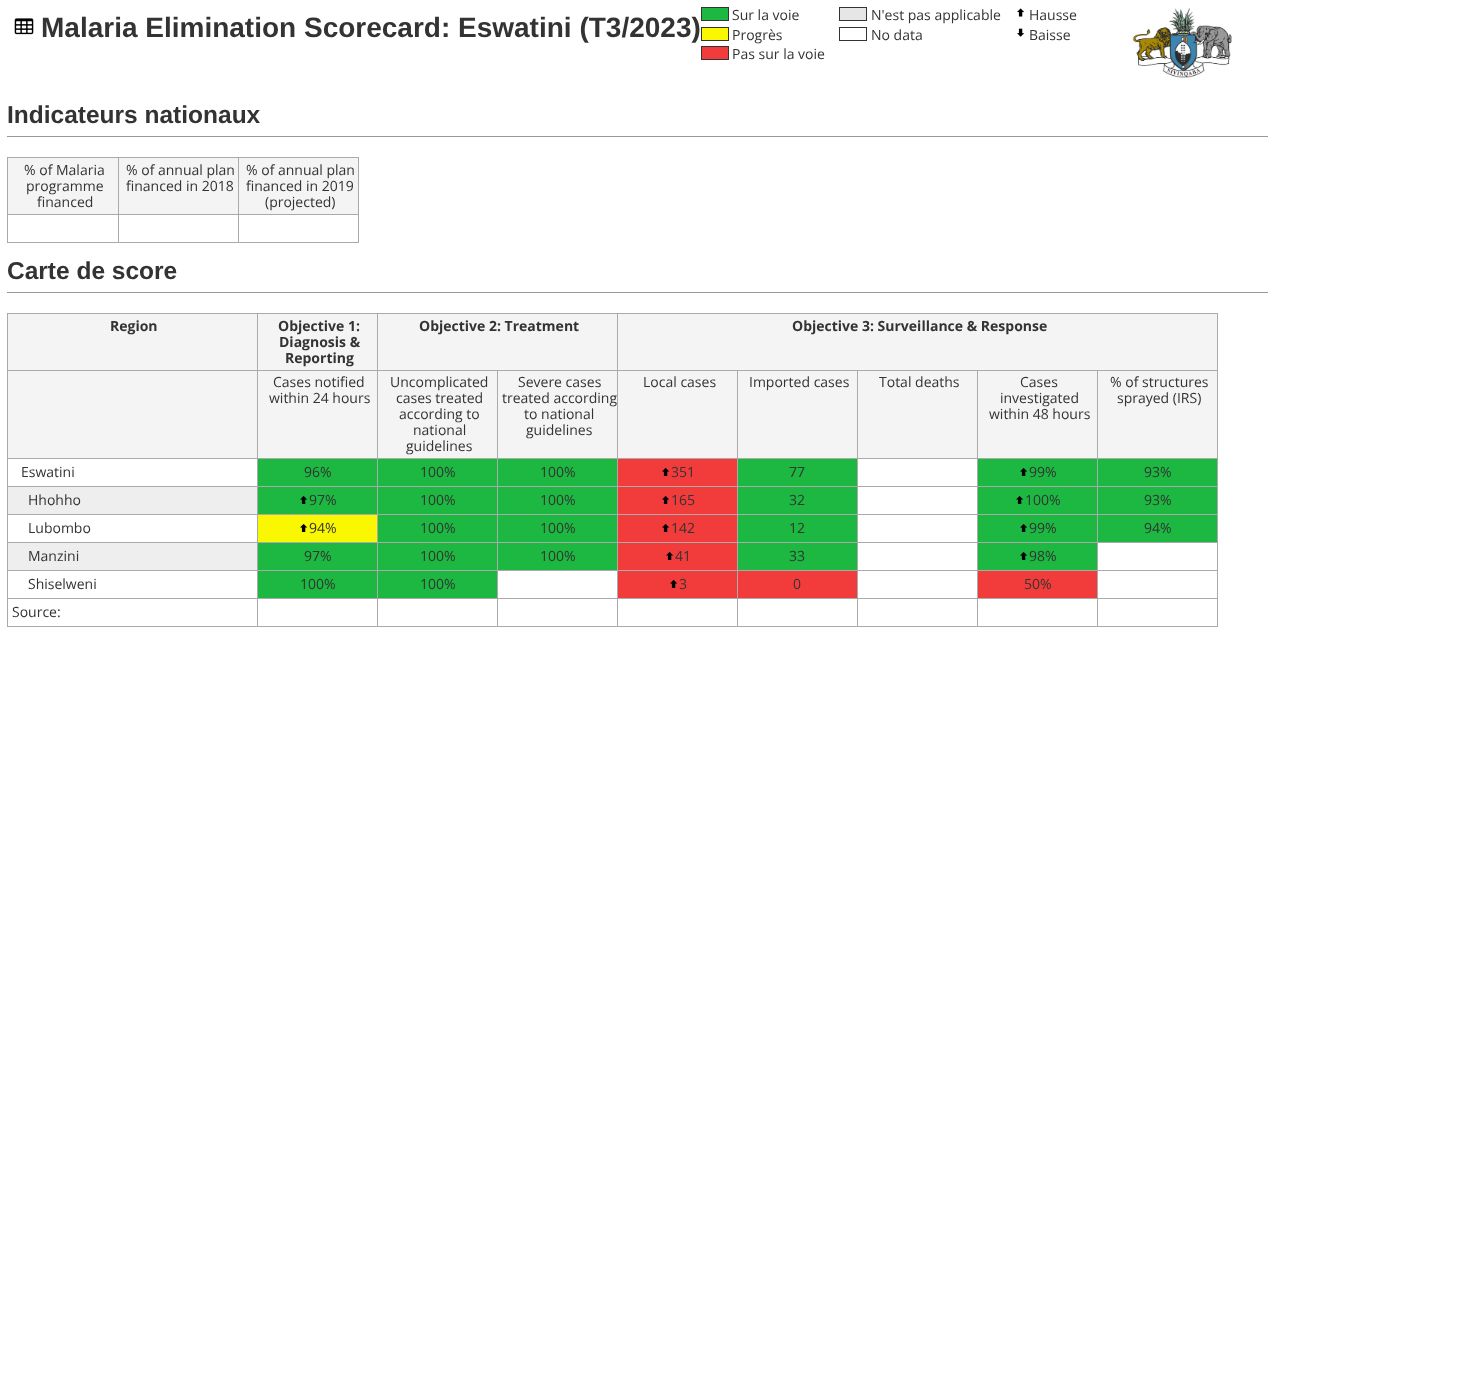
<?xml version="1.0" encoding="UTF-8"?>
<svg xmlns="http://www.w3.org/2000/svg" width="1480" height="1382">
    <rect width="100%" height="100%" fill="#FFFFFF"/>
    <image x="14" y="18" width="20" height="17" href="img_01.png"/>
    <text x="41" y="37" font-family="Liberation Sans" font-size="28" font-weight="700" fill="#333333">Malaria Elimination Scorecard: Eswatini (T3/2023)</text>
    <rect x="701.5" y="7.5" width="27" height="13" fill="#1CB841" stroke="#333333"/>
    <text x="732" y="20" font-family="Open Sans" font-size="14" fill="#333333">Sur la voie</text>
    <rect x="701.5" y="27.5" width="27" height="13" fill="#F9F800" stroke="#333333"/>
    <text x="732" y="40" font-family="Open Sans" font-size="14" fill="#333333">Progrès</text>
    <rect x="701.5" y="46.5" width="27" height="13" fill="#F23C3C" stroke="#333333"/>
    <text x="732" y="59" font-family="Open Sans" font-size="14" fill="#333333">Pas sur la voie</text>
    <rect x="839.5" y="7.5" width="27" height="13" fill="#E6E6E6" stroke="#333333"/>
    <text x="871" y="20" font-family="Open Sans" font-size="14" fill="#333333">N'est pas applicable</text>
    <rect x="839.5" y="27.5" width="27" height="13" fill="none" stroke="#333333"/>
    <text x="871" y="40" font-family="Open Sans" font-size="14" fill="#333333">No data</text>
    <image x="1017" y="8" width="7" height="9" href="img_02.png"/>
    <text x="1029" y="20" font-family="Open Sans" font-size="14" fill="#333333">Hausse</text>
    <image x="1017" y="28" width="8" height="9" href="img_03.png"/>
    <text x="1029" y="40" font-family="Open Sans" font-size="14" fill="#333333">Baisse</text>
    <image x="1132" y="7" width="100" height="71" href="img_04.png"/>
    <rect x="7" y="136" width="1261" height="1" fill="#999999"/>
    <text x="7" y="123" font-family="Liberation Sans" font-size="24.5" font-weight="700" fill="#333333">Indicateurs nationaux</text>
    <rect x="7" y="157" width="1" height="86" fill="#AAAAAA"/>
    <rect x="8" y="158" width="110" height="56" fill="#F4F4F4"/>
    <rect x="8" y="157" width="351" height="1" fill="#AAAAAA"/>
    <rect x="118" y="157" width="1" height="86" fill="#AAAAAA"/>
    <rect x="8" y="214" width="111" height="1" fill="#AAAAAA"/>
    <text x="24" y="175" font-family="Open Sans" font-size="14" fill="#333333">% of Malaria</text>
    <text x="26" y="191" font-family="Open Sans" font-size="14" fill="#333333">programme</text>
    <text x="37" y="207" font-family="Open Sans" font-size="14" fill="#333333">financed</text>
    <rect x="119" y="158" width="119" height="56" fill="#F4F4F4"/>
    <rect x="238" y="157" width="1" height="86" fill="#AAAAAA"/>
    <rect x="119" y="214" width="120" height="1" fill="#AAAAAA"/>
    <text font-family="Open Sans" font-size="14" fill="#333333">
        <tspan x="126" y="175">% of annual plan</tspan>
        <tspan x="126" y="191">financed in 2018</tspan>
    </text>
    <rect x="239" y="158" width="119" height="56" fill="#F4F4F4"/>
    <rect x="358" y="157" width="1" height="86" fill="#AAAAAA"/>
    <rect x="239" y="214" width="120" height="1" fill="#AAAAAA"/>
    <text font-family="Open Sans" font-size="14" fill="#333333">
        <tspan x="246" y="175">% of annual plan</tspan>
        <tspan x="246" y="191">financed in 2019</tspan>
    </text>
    <text x="265" y="207" font-family="Open Sans" font-size="14" fill="#333333">(projected)</text>
    <rect x="8" y="242" width="351" height="1" fill="#AAAAAA"/>
    <rect x="7" y="292" width="1261" height="1" fill="#999999"/>
    <text x="7" y="279" font-family="Liberation Sans" font-size="24.5" font-weight="700" fill="#333333">Carte de score</text>
    <rect x="7" y="313" width="1" height="314" fill="#AAAAAA"/>
    <rect x="8" y="314" width="249" height="56" fill="#F4F4F4"/>
    <rect x="8" y="313" width="1210" height="1" fill="#AAAAAA"/>
    <rect x="257" y="313" width="1" height="314" fill="#AAAAAA"/>
    <rect x="8" y="370" width="250" height="1" fill="#AAAAAA"/>
    <text x="110" y="331" font-family="Open Sans" font-size="14" font-weight="700" fill="#333333">Region</text>
    <rect x="258" y="314" width="119" height="56" fill="#F4F4F4"/>
    <rect x="377" y="313" width="1" height="314" fill="#AAAAAA"/>
    <rect x="258" y="370" width="120" height="1" fill="#AAAAAA"/>
    <text x="278" y="331" font-family="Open Sans" font-size="14" font-weight="700" fill="#333333">Objective 1:</text>
    <text x="279" y="347" font-family="Open Sans" font-size="14" font-weight="700" fill="#333333">Diagnosis &amp;</text>
    <text x="285" y="363" font-family="Open Sans" font-size="14" font-weight="700" fill="#333333">Reporting</text>
    <rect x="378" y="314" width="239" height="56" fill="#F4F4F4"/>
    <rect x="617" y="313" width="1" height="314" fill="#AAAAAA"/>
    <rect x="378" y="370" width="240" height="1" fill="#AAAAAA"/>
    <text x="419" y="331" font-family="Open Sans" font-size="14" font-weight="700" fill="#333333">Objective 2: Treatment</text>
    <rect x="618" y="314" width="599" height="56" fill="#F4F4F4"/>
    <rect x="1217" y="313" width="1" height="314" fill="#AAAAAA"/>
    <rect x="618" y="370" width="600" height="1" fill="#AAAAAA"/>
    <text x="792" y="331" font-family="Open Sans" font-size="14" font-weight="700" fill="#333333">Objective 3: Surveillance &amp; Response</text>
    <rect x="8" y="371" width="249" height="87" fill="#F4F4F4"/>
    <rect x="8" y="458" width="370" height="1" fill="#AAAAAA"/>
    <rect x="258" y="371" width="119" height="87" fill="#F4F4F4"/>
    <text x="273" y="387" font-family="Open Sans" font-size="14" fill="#333333">Cases notified</text>
    <text x="269" y="403" font-family="Open Sans" font-size="14" fill="#333333">within 24 hours</text>
    <rect x="378" y="371" width="119" height="87" fill="#F4F4F4"/>
    <rect x="497" y="371" width="1" height="256" fill="#AAAAAA"/>
    <rect x="378" y="458" width="240" height="1" fill="#AAAAAA"/>
    <text x="390" y="387" font-family="Open Sans" font-size="14" fill="#333333">Uncomplicated</text>
    <text x="396" y="403" font-family="Open Sans" font-size="14" fill="#333333">cases treated</text>
    <text x="399" y="419" font-family="Open Sans" font-size="14" fill="#333333">according to</text>
    <text x="413" y="435" font-family="Open Sans" font-size="14" fill="#333333">national</text>
    <text x="406" y="451" font-family="Open Sans" font-size="14" fill="#333333">guidelines</text>
    <rect x="498" y="371" width="119" height="87" fill="#F4F4F4"/>
    <text x="518" y="387" font-family="Open Sans" font-size="14" fill="#333333">Severe cases</text>
    <text x="502" y="403" font-family="Open Sans" font-size="14" fill="#333333">treated according</text>
    <text x="524" y="419" font-family="Open Sans" font-size="14" fill="#333333">to national</text>
    <text x="526" y="435" font-family="Open Sans" font-size="14" fill="#333333">guidelines</text>
    <rect x="618" y="371" width="119" height="87" fill="#F4F4F4"/>
    <rect x="737" y="371" width="1" height="256" fill="#AAAAAA"/>
    <rect x="618" y="458" width="120" height="1" fill="#AAAAAA"/>
    <text x="643" y="387" font-family="Open Sans" font-size="14" fill="#333333">Local cases</text>
    <rect x="738" y="371" width="119" height="87" fill="#F4F4F4"/>
    <rect x="857" y="371" width="1" height="256" fill="#AAAAAA"/>
    <rect x="738" y="458" width="120" height="1" fill="#AAAAAA"/>
    <text x="749" y="387" font-family="Open Sans" font-size="14" fill="#333333">Imported cases</text>
    <rect x="858" y="371" width="119" height="87" fill="#F4F4F4"/>
    <rect x="977" y="371" width="1" height="256" fill="#AAAAAA"/>
    <rect x="858" y="458" width="120" height="1" fill="#AAAAAA"/>
    <text x="879" y="387" font-family="Open Sans" font-size="14" fill="#333333">Total deaths</text>
    <rect x="978" y="371" width="119" height="87" fill="#F4F4F4"/>
    <rect x="1097" y="371" width="1" height="256" fill="#AAAAAA"/>
    <rect x="978" y="458" width="240" height="1" fill="#AAAAAA"/>
    <text x="1020" y="387" font-family="Open Sans" font-size="14" fill="#333333">Cases</text>
    <text x="1000" y="403" font-family="Open Sans" font-size="14" fill="#333333">investigated</text>
    <text x="989" y="419" font-family="Open Sans" font-size="14" fill="#333333">within 48 hours</text>
    <rect x="1098" y="371" width="119" height="87" fill="#F4F4F4"/>
    <text x="1110" y="387" font-family="Open Sans" font-size="14" fill="#333333">% of structures</text>
    <text x="1117" y="403" font-family="Open Sans" font-size="14" fill="#333333">sprayed (IRS)</text>
    <rect x="8" y="486" width="1210" height="1" fill="#AAAAAA"/>
    <text x="21" y="477" font-family="Open Sans" font-size="14" fill="#333333">Eswatini</text>
    <rect x="258" y="459" width="119" height="27" fill="#1CB841"/>
    <text x="304" y="477" font-family="Open Sans" font-size="14" fill="#333333">96%</text>
    <rect x="378" y="459" width="119" height="27" fill="#1CB841"/>
    <text x="420" y="477" font-family="Open Sans" font-size="14" fill="#333333">100%</text>
    <rect x="498" y="459" width="119" height="27" fill="#1CB841"/>
    <text x="540" y="477" font-family="Open Sans" font-size="14" fill="#333333">100%</text>
    <rect x="618" y="459" width="119" height="27" fill="#F23C3C"/>
    <image x="662" y="468" width="8" height="8" href="img_05.png"/>
    <text x="671" y="477" font-family="Open Sans" font-size="14" fill="#333333">351</text>
    <rect x="738" y="459" width="119" height="27" fill="#1CB841"/>
    <text x="789" y="477" font-family="Open Sans" font-size="14" fill="#333333">77</text>
    <rect x="978" y="459" width="119" height="27" fill="#1CB841"/>
    <image x="1020" y="468" width="8" height="8" href="img_06.png"/>
    <text x="1029" y="477" font-family="Open Sans" font-size="14" fill="#333333">99%</text>
    <rect x="1098" y="459" width="119" height="27" fill="#1CB841"/>
    <text x="1144" y="477" font-family="Open Sans" font-size="14" fill="#333333">93%</text>
    <rect x="8" y="487" width="249" height="27" fill="#EEEEEE"/>
    <rect x="8" y="514" width="1210" height="1" fill="#AAAAAA"/>
    <text x="28" y="505" font-family="Open Sans" font-size="14" fill="#333333">Hhohho</text>
    <rect x="258" y="487" width="119" height="27" fill="#1CB841"/>
    <image x="300" y="496" width="8" height="8" href="img_06.png"/>
    <text x="309" y="505" font-family="Open Sans" font-size="14" fill="#333333">97%</text>
    <rect x="378" y="487" width="119" height="27" fill="#1CB841"/>
    <text x="420" y="505" font-family="Open Sans" font-size="14" fill="#333333">100%</text>
    <rect x="498" y="487" width="119" height="27" fill="#1CB841"/>
    <text x="540" y="505" font-family="Open Sans" font-size="14" fill="#333333">100%</text>
    <rect x="618" y="487" width="119" height="27" fill="#F23C3C"/>
    <image x="662" y="496" width="8" height="8" href="img_05.png"/>
    <text x="671" y="505" font-family="Open Sans" font-size="14" fill="#333333">165</text>
    <rect x="738" y="487" width="119" height="27" fill="#1CB841"/>
    <text x="789" y="505" font-family="Open Sans" font-size="14" fill="#333333">32</text>
    <rect x="978" y="487" width="119" height="27" fill="#1CB841"/>
    <image x="1016" y="496" width="8" height="8" href="img_06.png"/>
    <text x="1025" y="505" font-family="Open Sans" font-size="14" fill="#333333">100%</text>
    <rect x="1098" y="487" width="119" height="27" fill="#1CB841"/>
    <text x="1144" y="505" font-family="Open Sans" font-size="14" fill="#333333">93%</text>
    <rect x="8" y="542" width="1210" height="1" fill="#AAAAAA"/>
    <text x="28" y="533" font-family="Open Sans" font-size="14" fill="#333333">Lubombo</text>
    <rect x="258" y="515" width="119" height="27" fill="#F9F800"/>
    <image x="300" y="524" width="8" height="8" href="img_07.png"/>
    <text x="309" y="533" font-family="Open Sans" font-size="14" fill="#333333">94%</text>
    <rect x="378" y="515" width="119" height="27" fill="#1CB841"/>
    <text x="420" y="533" font-family="Open Sans" font-size="14" fill="#333333">100%</text>
    <rect x="498" y="515" width="119" height="27" fill="#1CB841"/>
    <text x="540" y="533" font-family="Open Sans" font-size="14" fill="#333333">100%</text>
    <rect x="618" y="515" width="119" height="27" fill="#F23C3C"/>
    <image x="662" y="524" width="8" height="8" href="img_05.png"/>
    <text x="671" y="533" font-family="Open Sans" font-size="14" fill="#333333">142</text>
    <rect x="738" y="515" width="119" height="27" fill="#1CB841"/>
    <text x="789" y="533" font-family="Open Sans" font-size="14" fill="#333333">12</text>
    <rect x="978" y="515" width="119" height="27" fill="#1CB841"/>
    <image x="1020" y="524" width="8" height="8" href="img_06.png"/>
    <text x="1029" y="533" font-family="Open Sans" font-size="14" fill="#333333">99%</text>
    <rect x="1098" y="515" width="119" height="27" fill="#1CB841"/>
    <text x="1144" y="533" font-family="Open Sans" font-size="14" fill="#333333">94%</text>
    <rect x="8" y="543" width="249" height="27" fill="#EEEEEE"/>
    <rect x="8" y="570" width="1210" height="1" fill="#AAAAAA"/>
    <text x="28" y="561" font-family="Open Sans" font-size="14" fill="#333333">Manzini</text>
    <rect x="258" y="543" width="119" height="27" fill="#1CB841"/>
    <text x="304" y="561" font-family="Open Sans" font-size="14" fill="#333333">97%</text>
    <rect x="378" y="543" width="119" height="27" fill="#1CB841"/>
    <text x="420" y="561" font-family="Open Sans" font-size="14" fill="#333333">100%</text>
    <rect x="498" y="543" width="119" height="27" fill="#1CB841"/>
    <text x="540" y="561" font-family="Open Sans" font-size="14" fill="#333333">100%</text>
    <rect x="618" y="543" width="119" height="27" fill="#F23C3C"/>
    <image x="666" y="552" width="8" height="8" href="img_05.png"/>
    <text x="675" y="561" font-family="Open Sans" font-size="14" fill="#333333">41</text>
    <rect x="738" y="543" width="119" height="27" fill="#1CB841"/>
    <text x="789" y="561" font-family="Open Sans" font-size="14" fill="#333333">33</text>
    <rect x="978" y="543" width="119" height="27" fill="#1CB841"/>
    <image x="1020" y="552" width="8" height="8" href="img_06.png"/>
    <text x="1029" y="561" font-family="Open Sans" font-size="14" fill="#333333">98%</text>
    <rect x="8" y="598" width="1210" height="1" fill="#AAAAAA"/>
    <text x="28" y="589" font-family="Open Sans" font-size="14" fill="#333333">Shiselweni</text>
    <rect x="258" y="571" width="119" height="27" fill="#1CB841"/>
    <text x="300" y="589" font-family="Open Sans" font-size="14" fill="#333333">100%</text>
    <rect x="378" y="571" width="119" height="27" fill="#1CB841"/>
    <text x="420" y="589" font-family="Open Sans" font-size="14" fill="#333333">100%</text>
    <rect x="618" y="571" width="119" height="27" fill="#F23C3C"/>
    <image x="670" y="580" width="8" height="8" href="img_05.png"/>
    <text x="679" y="589" font-family="Open Sans" font-size="14" fill="#333333">3</text>
    <rect x="738" y="571" width="119" height="27" fill="#F23C3C"/>
    <text x="793" y="589" font-family="Open Sans" font-size="14" fill="#333333">0</text>
    <rect x="978" y="571" width="119" height="27" fill="#F23C3C"/>
    <text x="1024" y="589" font-family="Open Sans" font-size="14" fill="#333333">50%</text>
    <rect x="8" y="626" width="1210" height="1" fill="#AAAAAA"/>
    <text x="12" y="617" font-family="Open Sans" font-size="14" fill="#333333">Source:</text>
</svg>
